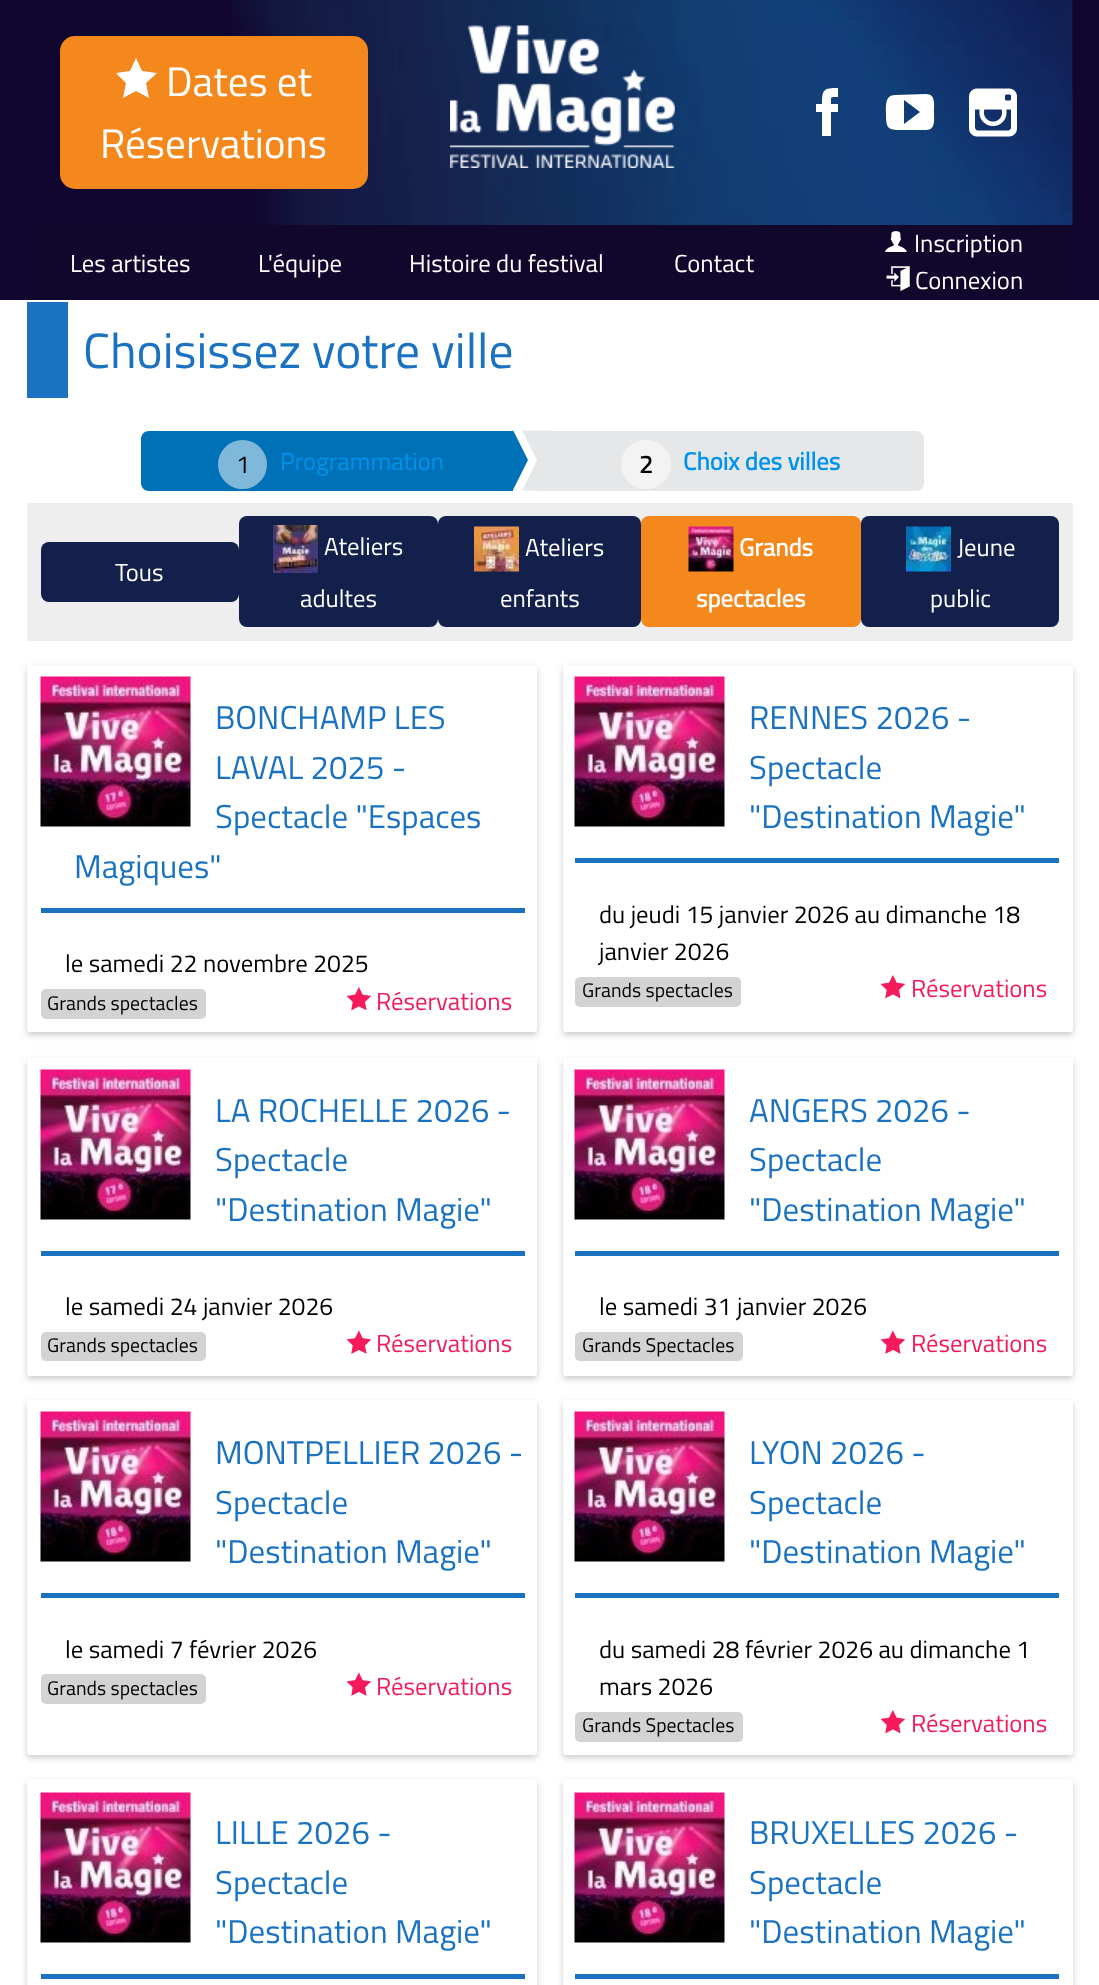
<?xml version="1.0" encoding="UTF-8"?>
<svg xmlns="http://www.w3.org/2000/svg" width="1099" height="1985">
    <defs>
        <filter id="blur1" x="-50%" y="-200%" width="200%" height="500%"><feGaussianBlur stdDeviation="3"/></filter>
    </defs>
    <rect width="100%" height="100%" fill="#FFFFFF"/>
    <rect x="0" y="0" width="1099" height="300" fill="#110630"/>
    <image x="232" y="0" width="841" height="225" href="img_01.png"/>
    <rect x="60" y="36" width="308" height="153" rx="15" fill="#F4881C"/>
    <path d="M 157 73 L 142 71 L 136 58 L 130 71 L 116 73 L 126 83 L 123 98 L 136 91 L 149 98 L 146 83 Z" fill="#FFFFFF"/>
    <text x="166" y="96" font-family="Titillium Web" font-size="41.25" fill="#FFFFFF">Dates et</text>
    <text x="100" y="158" font-family="Titillium Web" font-size="41.25" fill="#FFFFFF">Réservations</text>
    <image x="450" y="25" width="225" height="143" href="img_02.png"/>
    <path d="M 831 136 H 822 V 112 H 816 V 104 H 822 C 822 89 824 88 838 88 V 97 C 830 97 831 96 831 104 H 838 V 112 H 831 Z" fill="#FFFFFF"/>
    <path d="M 926 94 L 895 95 C 885 95 886 106 886 112 C 886 130 887 130 906 130 H 926 C 936 130 934 119 934 112 C 934 105 936 94 926 94 Z M 904 124 V 100 L 920 112 Z" fill="#FFFFFF"/>
    <image x="969" y="88" width="48" height="49" href="img_03.png"/>
    <rect x="27" y="225" width="1046" height="75" fill="#11062C"/>
    <text x="70" y="272" font-family="Titillium Web" font-size="24.75" fill="#FFFFFF">Les artistes</text>
    <text x="258" y="272" font-family="Titillium Web" font-size="24.75" fill="#FFFFFF">L'équipe</text>
    <text x="409" y="272" font-family="Titillium Web" font-size="24.75" fill="#FFFFFF">Histoire du festival</text>
    <text x="674" y="272" font-family="Titillium Web" font-size="24.75" fill="#FFFFFF">Contact</text>
    <image x="885" y="231" width="22" height="21" href="img_04.png"/>
    <text x="914" y="252" font-family="Titillium Web" font-size="24.75" fill="#FFFFFF">Inscription</text>
    <image x="886" y="266" width="24" height="25" href="img_05.png"/>
    <text x="915" y="289" font-family="Titillium Web" font-size="24.75" fill="#FFFFFF">Connexion</text>
    <rect x="27" y="302" width="41" height="96" fill="#1A72C1"/>
    <text x="83" y="368" font-family="Titillium Web" font-size="49.5" fill="#1A72C1">Choisissez votre ville</text>
    <path d="M 149 431 H 513 V 491 H 149 C 144.5 491 141 487.5 141 483 V 439 C 141 434.5 144.5 431 149 431 Z" fill="#0071B6"/>
    <circle cx="242.5" cy="464.5" r="24.5" fill="#80B8DB"/>
    <text x="236" y="473" font-family="Titillium Web" font-size="24.75" fill="#000000">1</text>
    <text x="280" y="470" font-family="Titillium Web" font-size="24.75" fill="#0093ED">Programmation</text>
    <path d="M 513 490 V 430 L 528 460 Z" fill="#0071B6"/>
    <path d="M 552 431 H 916 C 920.5 431 924 434.5 924 439 V 483 C 924 487.5 920.5 491 916 491 H 552 Z" fill="#E6E7E9"/>
    <path d="M 522 430.5 H 552 L 537 460.5 Z" fill="#E6E7E9"/>
    <rect x="537" y="431" width="15" height="60" fill="#E6E7E9"/>
    <path d="M 552 490.5 H 522 L 537 460.5 Z" fill="#E6E7E9"/>
    <rect x="621" y="440" width="50" height="49" rx="24.5" fill="#F3F3F4"/>
    <text x="639" y="473" font-family="Titillium Web" font-size="24.75" font-weight="700" fill="#000000">2</text>
    <text x="683" y="470" font-family="Titillium Web" font-size="24.75" font-weight="700" fill="#0093ED">Choix des villes</text>
    <rect x="27" y="503" width="1046" height="138" fill="#EEEEEE"/>
    <rect x="41" y="542" width="198" height="60" rx="8" fill="#13204C"/>
    <text x="115" y="581" font-family="Titillium Web" font-size="24.75" fill="#FFFFFF">Tous</text>
    <rect x="239" y="516" width="199" height="111" rx="8" fill="#13204C"/>
    <image x="273" y="525" width="45" height="48" href="img_06.png"/>
    <text x="324" y="555" font-family="Titillium Web" font-size="24.75" fill="#FFFFFF">Ateliers</text>
    <text x="300" y="607" font-family="Titillium Web" font-size="24.75" fill="#FFFFFF">adultes</text>
    <rect x="438" y="516" width="203" height="111" rx="8" fill="#13204C"/>
    <image x="474" y="526" width="45" height="46" href="img_07.png"/>
    <text x="525" y="556" font-family="Titillium Web" font-size="24.75" fill="#FFFFFF">Ateliers</text>
    <text x="500" y="607" font-family="Titillium Web" font-size="24.75" fill="#FFFFFF">enfants</text>
    <rect x="641" y="516" width="220" height="111" rx="8" fill="#F4881C"/>
    <image x="688" y="526" width="46" height="46" href="img_08.png"/>
    <text x="739" y="556" font-family="Titillium Web" font-size="24.75" font-weight="700" fill="#FFFFFF">Grands</text>
    <text x="696" y="607" font-family="Titillium Web" font-size="24.75" font-weight="700" fill="#FFFFFF">spectacles</text>
    <rect x="861" y="516" width="198" height="111" rx="8" fill="#13204C"/>
    <image x="906" y="526" width="45" height="46" href="img_09.png"/>
    <text x="957" y="556" font-family="Titillium Web" font-size="24.75" fill="#FFFFFF">Jeune</text>
    <text x="930" y="607" font-family="Titillium Web" font-size="24.75" fill="#FFFFFF">public</text>
    <rect x="27" y="668" width="510" height="367" rx="3" fill="#000000" fill-opacity="0.2" filter="url(#blur1)"/>
    <rect x="27" y="665" width="510" height="367" rx="3" fill="#FFFFFF"/>
    <image x="40" y="676" width="151" height="151" href="img_10.png"/>
    <rect x="41" y="908" width="484" height="5" fill="#1A72C1"/>
    <text font-family="Titillium Web" font-size="33" fill="#1A72C1">
        <tspan x="215" y="729">BONCHAMP LES</tspan>
        <tspan x="215" y="779">LAVAL 2025 -</tspan>
        <tspan x="215" y="828">Spectacle "Espaces</tspan>
    </text>
    <text x="74" y="878" font-family="Titillium Web" font-size="33" fill="#1A72C1">Magiques"</text>
    <text x="65" y="972" font-family="Titillium Web" font-size="24.75" fill="#000000">le samedi 22 novembre 2025</text>
    <rect x="41" y="989" width="165" height="30" rx="5" fill="#D3D3D3"/>
    <text x="47" y="1010" font-family="Titillium Web" font-size="19.75" fill="#000000">Grands spectacles</text>
    <image x="346" y="987" width="26" height="24" href="img_11.png"/>
    <text x="376" y="1010" font-family="Titillium Web" font-size="24.75" fill="#F41A5C">Réservations</text>
    <rect x="563" y="668" width="510" height="367" rx="3" fill="#000000" fill-opacity="0.2" filter="url(#blur1)"/>
    <rect x="563" y="665" width="510" height="367" rx="3" fill="#FFFFFF"/>
    <image x="574" y="676" width="151" height="151" href="img_12.png"/>
    <rect x="575" y="858" width="484" height="5" fill="#1A72C1"/>
    <text font-family="Titillium Web" font-size="33" fill="#1A72C1">
        <tspan x="749" y="729">RENNES 2026 -</tspan>
        <tspan x="749" y="779">Spectacle</tspan>
        <tspan x="749" y="828">"Destination Magie"</tspan>
    </text>
    <text font-family="Titillium Web" font-size="24.75" fill="#000000">
        <tspan x="599" y="923">du jeudi 15 janvier 2026 au dimanche 18</tspan>
        <tspan x="599" y="960">janvier 2026</tspan>
    </text>
    <rect x="575" y="977" width="166" height="30" rx="5" fill="#D3D3D3"/>
    <text x="582" y="997" font-family="Titillium Web" font-size="19.75" fill="#000000">Grands spectacles</text>
    <image x="880" y="975" width="26" height="24" href="img_11.png"/>
    <text x="911" y="997" font-family="Titillium Web" font-size="24.75" fill="#F41A5C">Réservations</text>
    <rect x="27" y="1061" width="510" height="318" rx="3" fill="#000000" fill-opacity="0.2" filter="url(#blur1)"/>
    <rect x="27" y="1058" width="510" height="318" rx="3" fill="#FFFFFF"/>
    <image x="40" y="1069" width="151" height="151" href="img_10.png"/>
    <rect x="41" y="1251" width="484" height="5" fill="#1A72C1"/>
    <text font-family="Titillium Web" font-size="33" fill="#1A72C1">
        <tspan x="215" y="1122">LA ROCHELLE 2026 -</tspan>
        <tspan x="215" y="1171">Spectacle</tspan>
        <tspan x="215" y="1221">"Destination Magie"</tspan>
    </text>
    <text x="65" y="1315" font-family="Titillium Web" font-size="24.75" fill="#000000">le samedi 24 janvier 2026</text>
    <rect x="41" y="1332" width="165" height="29" rx="5" fill="#D3D3D3"/>
    <text x="47" y="1352" font-family="Titillium Web" font-size="19.75" fill="#000000">Grands spectacles</text>
    <image x="346" y="1330" width="26" height="24" href="img_13.png"/>
    <text x="376" y="1352" font-family="Titillium Web" font-size="24.75" fill="#F41A5C">Réservations</text>
    <rect x="563" y="1061" width="510" height="318" rx="3" fill="#000000" fill-opacity="0.2" filter="url(#blur1)"/>
    <rect x="563" y="1058" width="510" height="318" rx="3" fill="#FFFFFF"/>
    <image x="574" y="1069" width="151" height="151" href="img_14.png"/>
    <rect x="575" y="1251" width="484" height="5" fill="#1A72C1"/>
    <text font-family="Titillium Web" font-size="33" fill="#1A72C1">
        <tspan x="749" y="1122">ANGERS 2026 -</tspan>
        <tspan x="749" y="1171">Spectacle</tspan>
        <tspan x="749" y="1221">"Destination Magie"</tspan>
    </text>
    <text x="599" y="1315" font-family="Titillium Web" font-size="24.75" fill="#000000">le samedi 31 janvier 2026</text>
    <rect x="575" y="1332" width="168" height="29" rx="5" fill="#D3D3D3"/>
    <text x="582" y="1352" font-family="Titillium Web" font-size="19.75" fill="#000000">Grands Spectacles</text>
    <image x="880" y="1330" width="26" height="24" href="img_13.png"/>
    <text x="911" y="1352" font-family="Titillium Web" font-size="24.75" fill="#F41A5C">Réservations</text>
    <rect x="27" y="1403" width="510" height="355" rx="3" fill="#000000" fill-opacity="0.2" filter="url(#blur1)"/>
    <rect x="27" y="1400" width="510" height="355" rx="3" fill="#FFFFFF"/>
    <image x="40" y="1411" width="151" height="151" href="img_15.png"/>
    <rect x="41" y="1593" width="484" height="5" fill="#1A72C1"/>
    <text font-family="Titillium Web" font-size="33" fill="#1A72C1">
        <tspan x="215" y="1464">MONTPELLIER 2026 -</tspan>
        <tspan x="215" y="1514">Spectacle</tspan>
        <tspan x="215" y="1563">"Destination Magie"</tspan>
    </text>
    <text x="65" y="1658" font-family="Titillium Web" font-size="24.75" fill="#000000">le samedi 7 février 2026</text>
    <rect x="41" y="1674" width="165" height="30" rx="5" fill="#D3D3D3"/>
    <text x="47" y="1695" font-family="Titillium Web" font-size="19.75" fill="#000000">Grands spectacles</text>
    <image x="346" y="1672" width="26" height="24" href="img_13.png"/>
    <text x="376" y="1695" font-family="Titillium Web" font-size="24.75" fill="#F41A5C">Réservations</text>
    <rect x="563" y="1403" width="510" height="355" rx="3" fill="#000000" fill-opacity="0.2" filter="url(#blur1)"/>
    <rect x="563" y="1400" width="510" height="355" rx="3" fill="#FFFFFF"/>
    <image x="574" y="1411" width="151" height="151" href="img_14.png"/>
    <rect x="575" y="1593" width="484" height="5" fill="#1A72C1"/>
    <text font-family="Titillium Web" font-size="33" fill="#1A72C1">
        <tspan x="749" y="1464">LYON 2026 -</tspan>
        <tspan x="749" y="1514">Spectacle</tspan>
        <tspan x="749" y="1563">"Destination Magie"</tspan>
    </text>
    <text font-family="Titillium Web" font-size="24.75" fill="#000000">
        <tspan x="599" y="1658">du samedi 28 février 2026 au dimanche 1</tspan>
        <tspan x="599" y="1695">mars 2026</tspan>
    </text>
    <rect x="575" y="1712" width="168" height="30" rx="5" fill="#D3D3D3"/>
    <text x="582" y="1732" font-family="Titillium Web" font-size="19.75" fill="#000000">Grands Spectacles</text>
    <image x="880" y="1710" width="26" height="24" href="img_11.png"/>
    <text x="911" y="1732" font-family="Titillium Web" font-size="24.75" fill="#F41A5C">Réservations</text>
    <rect x="27" y="1782" width="510" height="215" rx="3" fill="#000000" fill-opacity="0.2" filter="url(#blur1)"/>
    <rect x="27" y="1779" width="510" height="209" rx="3" fill="#FFFFFF"/>
    <image x="40" y="1792" width="151" height="151" href="img_15.png"/>
    <rect x="41" y="1974" width="484" height="5" fill="#1A72C1"/>
    <text font-family="Titillium Web" font-size="33" fill="#1A72C1">
        <tspan x="215" y="1844">LILLE 2026 -</tspan>
        <tspan x="215" y="1894">Spectacle</tspan>
        <tspan x="215" y="1943">"Destination Magie"</tspan>
    </text>
    <rect x="563" y="1782" width="510" height="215" rx="3" fill="#000000" fill-opacity="0.2" filter="url(#blur1)"/>
    <rect x="563" y="1779" width="510" height="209" rx="3" fill="#FFFFFF"/>
    <image x="574" y="1792" width="151" height="151" href="img_14.png"/>
    <rect x="575" y="1974" width="484" height="5" fill="#1A72C1"/>
    <text font-family="Titillium Web" font-size="33" fill="#1A72C1">
        <tspan x="749" y="1844">BRUXELLES 2026 -</tspan>
        <tspan x="749" y="1894">Spectacle</tspan>
        <tspan x="749" y="1943">"Destination Magie"</tspan>
    </text>
</svg>
